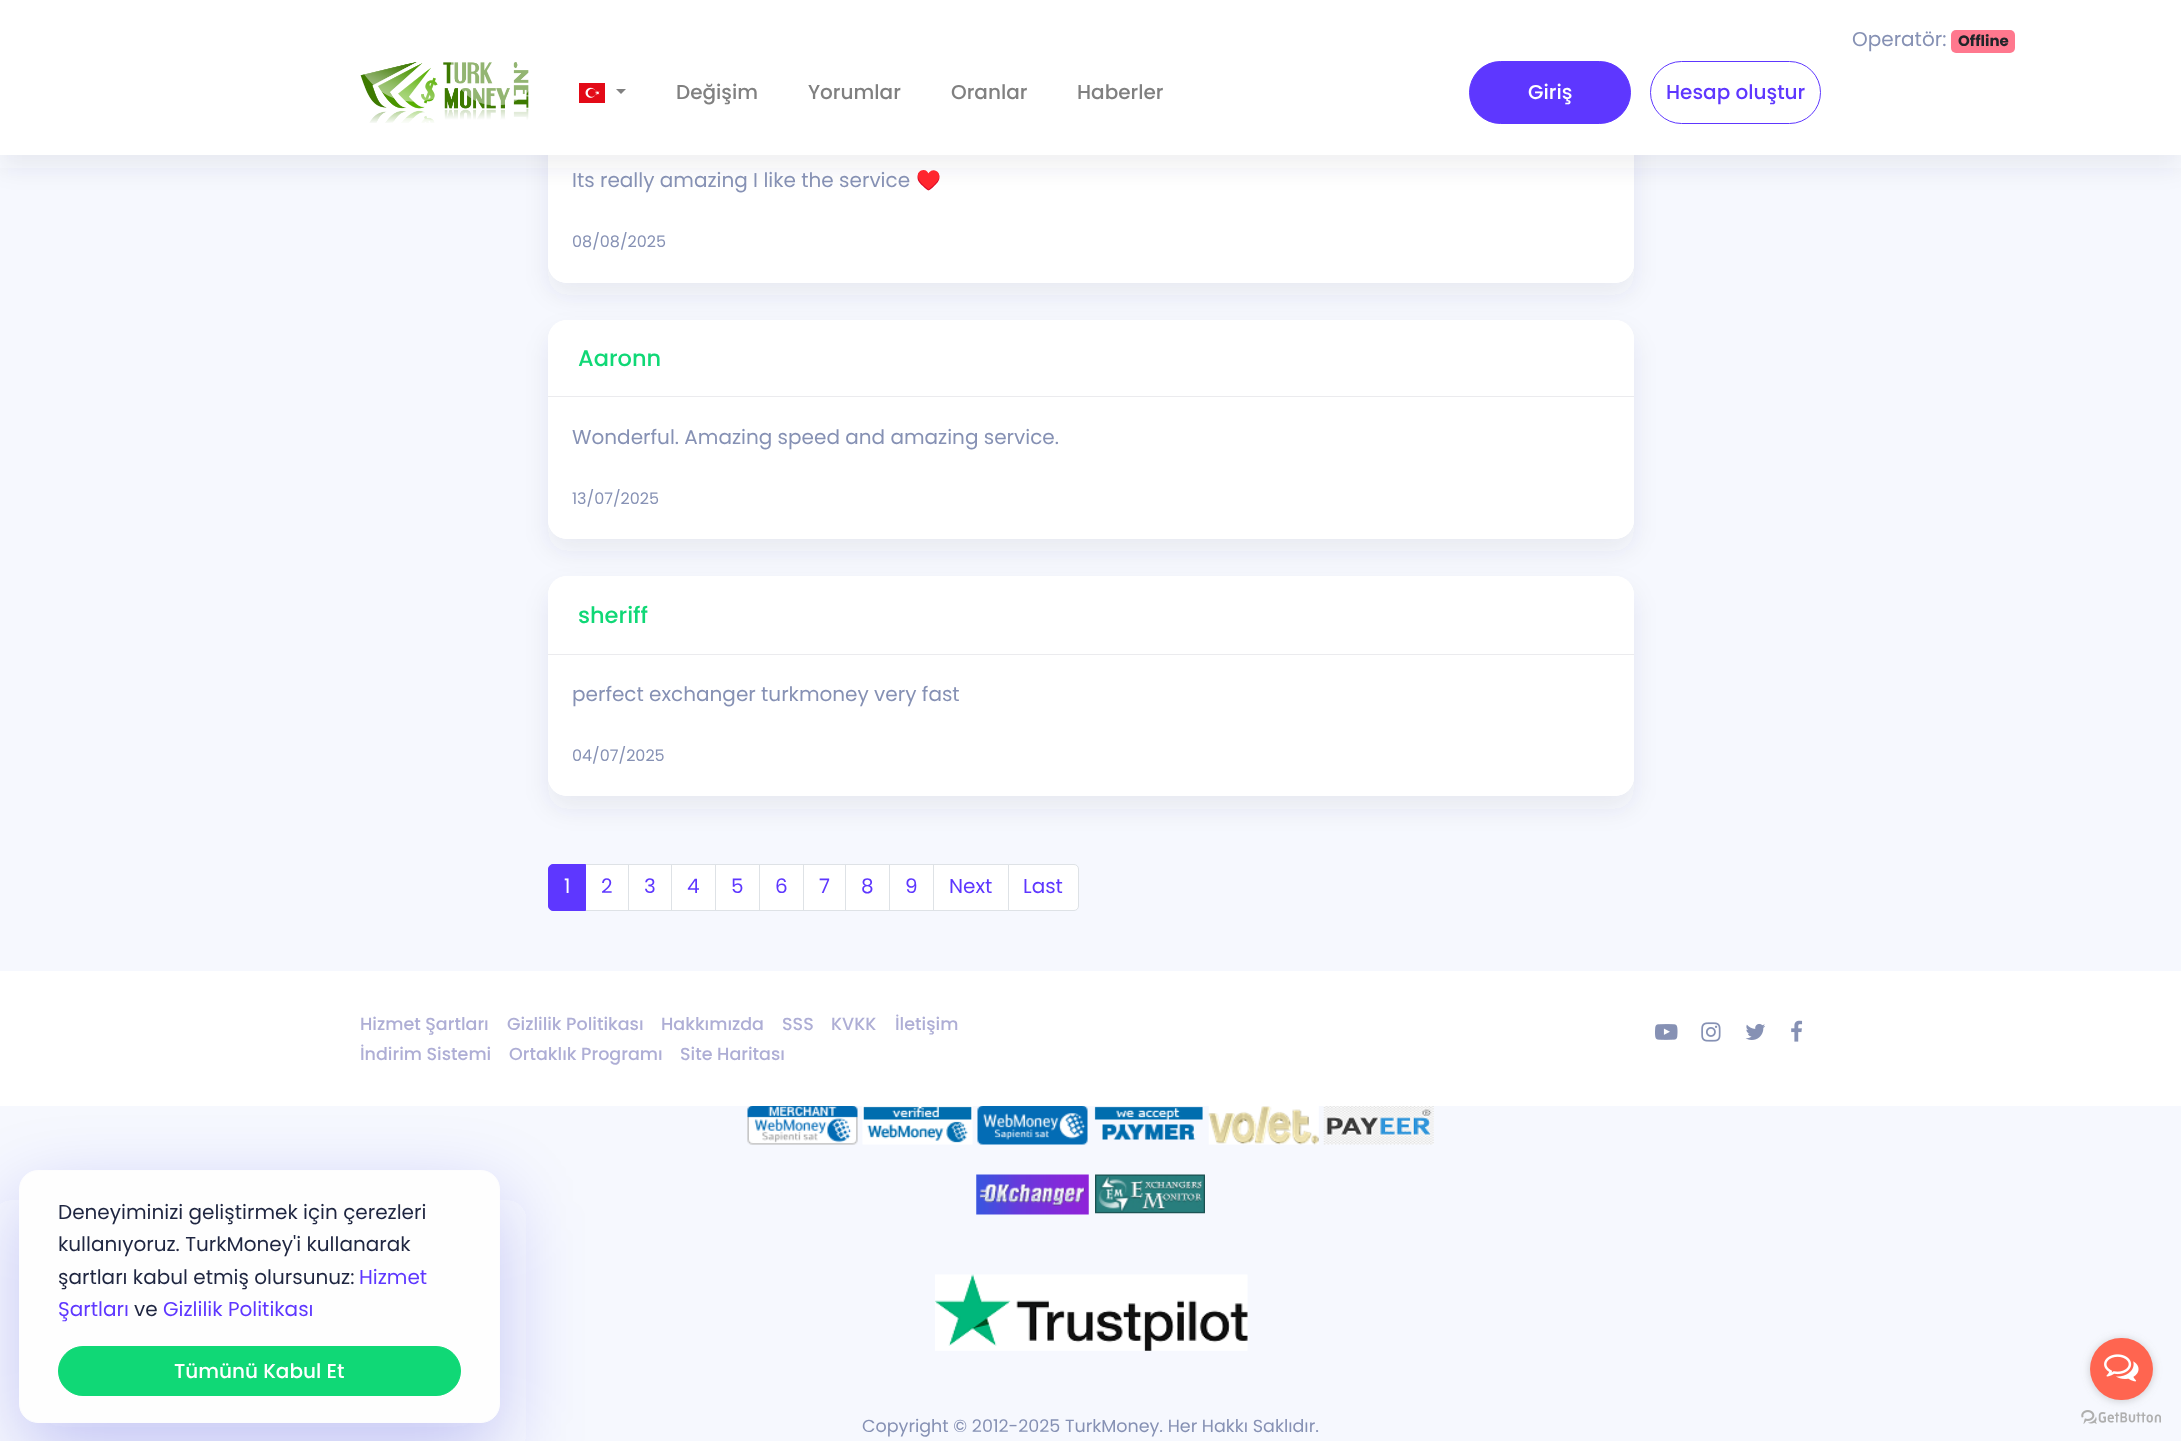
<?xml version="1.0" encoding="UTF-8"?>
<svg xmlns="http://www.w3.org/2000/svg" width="2181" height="1441">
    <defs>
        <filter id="blur1" x="-50%" y="-200%" width="200%" height="500%"><feGaussianBlur stdDeviation="12.5"/></filter>
        <filter id="blur2" x="-50%" y="-200%" width="200%" height="500%"><feGaussianBlur stdDeviation="40"/></filter>
        <filter id="blur3" x="-50%" y="-200%" width="200%" height="500%"><feGaussianBlur stdDeviation="4.5"/></filter>
    </defs>
    <rect width="100%" height="100%" fill="#F6F8FE"/>
    <rect x="548" y="75" width="1086" height="220" rx="19" fill="#373759" fill-opacity="0.08" filter="url(#blur1)"/>
    <rect x="548" y="63" width="1086" height="220" rx="19" fill="#FFFFFF"/>
    <rect x="548" y="141" width="1086" height="142" rx="19" fill="#FFFFFF"/>
    <rect x="0" y="13" width="2181" height="155" fill="#373759" fill-opacity="0.08" filter="url(#blur1)"/>
    <rect x="0" y="0" width="2181" height="155" fill="#FFFFFF"/>
    <text x="1852" y="46" font-family="Poppins" font-size="20" fill="#8691B4">Operatör:</text>
    <rect x="1951" y="30" width="64" height="23" rx="5" fill="#FF788E"/>
    <text x="1958" y="46" font-family="Poppins" font-size="15" font-weight="700" fill="#212529">Offline</text>
    <image x="360" y="62" width="169" height="61" href="img_01.png"/>
    <image x="579" y="83" width="26" height="20" href="img_02.png"/>
    <path d="M 616 89 H 626 L 621 94 Z" fill="#808080"/>
    <text x="676" y="99" font-family="Poppins" font-size="20" font-weight="500" fill="#808080">Değişim</text>
    <text x="808" y="99" font-family="Poppins" font-size="20" font-weight="500" fill="#808080">Yorumlar</text>
    <text x="951" y="99" font-family="Poppins" font-size="20" font-weight="500" fill="#808080">Oranlar</text>
    <text x="1077" y="99" font-family="Poppins" font-size="20" font-weight="500" fill="#808080">Haberler</text>
    <rect x="1469.5" y="61.5" width="161" height="62" rx="31" fill="#5E37FF" stroke="#5E37FF"/>
    <text x="1528" y="99" font-family="Poppins" font-size="20" font-weight="500" fill="#FFFFFF">Giriş</text>
    <rect x="1650.5" y="61.5" width="170" height="62" rx="31" fill="none" stroke="#5E37FF"/>
    <text x="1666" y="99" font-family="Poppins" font-size="20" font-weight="500" fill="#5E37FF">Hesap oluştur</text>
    <text x="572" y="187" font-family="Poppins" font-size="20" fill="#8691B4">Its really amazing I like the service</text>
    <text x="916" y="187" font-family="Noto Color Emoji" font-size="20" fill="#8691B4">♥️</text>
    <text x="572" y="247" font-family="Poppins" font-size="16" fill="#8691B4">08/08/2025</text>
    <rect x="548" y="333" width="1086" height="218" rx="19" fill="#373759" fill-opacity="0.08" filter="url(#blur1)"/>
    <rect x="548" y="320" width="1086" height="219" rx="19" fill="#FFFFFF"/>
    <path d="M 567 320 H 1615 C 1625.5 320 1634 328.5 1634 339 V 398 H 548 V 339 C 548 328.5 556.5 320 567 320 Z" fill="#FFFFFF"/>
    <rect x="548" y="396" width="1086" height="1" fill="#EBEBEE"/>
    <text x="578" y="366" font-family="Poppins" font-size="22.5" font-weight="500" fill="#10D876">Aaronn</text>
    <rect x="548" y="398" width="1086" height="141" rx="19" fill="#FFFFFF"/>
    <text x="572" y="444" font-family="Poppins" font-size="20" fill="#8691B4">Wonderful. Amazing speed and amazing service.</text>
    <text x="572" y="504" font-family="Poppins" font-size="16" fill="#8691B4">13/07/2025</text>
    <rect x="548" y="589" width="1086" height="220" rx="19" fill="#373759" fill-opacity="0.08" filter="url(#blur1)"/>
    <rect x="548" y="576" width="1086" height="220" rx="19" fill="#FFFFFF"/>
    <path d="M 567 576 H 1615 C 1625.5 576 1634 584.5 1634 595 V 655 H 548 V 595 C 548 584.5 556.5 576 567 576 Z" fill="#FFFFFF"/>
    <rect x="548" y="654" width="1086" height="1" fill="#EBEBEE"/>
    <text x="578" y="623" font-family="Poppins" font-size="22.5" font-weight="500" fill="#10D876">sheriff</text>
    <rect x="548" y="655" width="1086" height="141" rx="19" fill="#FFFFFF"/>
    <text x="572" y="701" font-family="Poppins" font-size="20" fill="#8691B4">perfect exchanger turkmoney very fast</text>
    <text x="572" y="761" font-family="Poppins" font-size="16" fill="#8691B4">04/07/2025</text>
    <rect x="585.5" y="864.5" width="43" height="46" fill="#FFFFFF" stroke="#DEE2E6"/>
    <path d="M 553 864.5 H 585.5 V 910.5 H 553 C 550.5 910.5 548.5 908.5 548.5 906 V 869 C 548.5 866.5 550.5 864.5 553 864.5 Z" fill="#5E37FF" stroke="#5E37FF"/>
    <text x="564" y="893" font-family="Poppins" font-size="20" fill="#FFFFFF">1</text>
    <text x="601" y="893" font-family="Poppins" font-size="20" fill="#5E37FF">2</text>
    <rect x="629" y="865" width="42" height="45" fill="#FFFFFF"/>
    <rect x="628.5" y="864.5" width="44" height="46" fill="none" stroke="#DEE2E6"/>
    <text x="644" y="893" font-family="Poppins" font-size="20" fill="#5E37FF">3</text>
    <rect x="671.5" y="864.5" width="44" height="46" fill="#FFFFFF" stroke="#DEE2E6"/>
    <text x="687" y="893" font-family="Poppins" font-size="20" fill="#5E37FF">4</text>
    <rect x="715.5" y="864.5" width="44" height="46" fill="#FFFFFF" stroke="#DEE2E6"/>
    <text x="731" y="893" font-family="Poppins" font-size="20" fill="#5E37FF">5</text>
    <rect x="759.5" y="864.5" width="44" height="46" fill="#FFFFFF" stroke="#DEE2E6"/>
    <text x="775" y="893" font-family="Poppins" font-size="20" fill="#5E37FF">6</text>
    <rect x="803.5" y="864.5" width="42" height="46" fill="#FFFFFF" stroke="#DEE2E6"/>
    <text x="819" y="893" font-family="Poppins" font-size="20" fill="#5E37FF">7</text>
    <rect x="845.5" y="864.5" width="44" height="46" fill="#FFFFFF" stroke="#DEE2E6"/>
    <text x="861" y="893" font-family="Poppins" font-size="20" fill="#5E37FF">8</text>
    <rect x="889.5" y="864.5" width="44" height="46" fill="#FFFFFF" stroke="#DEE2E6"/>
    <text x="905" y="893" font-family="Poppins" font-size="20" fill="#5E37FF">9</text>
    <rect x="933.5" y="864.5" width="75" height="46" fill="#FFFFFF" stroke="#DEE2E6"/>
    <text x="949" y="893" font-family="Poppins" font-size="20" fill="#5E37FF">Next</text>
    <path d="M 1008.5 864.5 H 1074 C 1076.5 864.5 1078.5 866.5 1078.5 869 V 906 C 1078.5 908.5 1076.5 910.5 1074 910.5 H 1008.5 Z" fill="#FFFFFF" stroke="#DEE2E6"/>
    <text x="1023" y="893" font-family="Poppins" font-size="20" fill="#5E37FF">Last</text>
    <rect x="0" y="971" width="2181" height="135" fill="#FFFFFF"/>
    <text x="360" y="1030" font-family="Poppins" font-size="17.5" font-weight="500" fill="#AEAED5">Hizmet Şartları</text>
    <text x="507" y="1030" font-family="Poppins" font-size="17.5" font-weight="500" fill="#AEAED5">Gizlilik Politikası</text>
    <text x="661" y="1030" font-family="Poppins" font-size="17.5" font-weight="500" fill="#AEAED5">Hakkımızda</text>
    <text x="782" y="1030" font-family="Poppins" font-size="17.5" font-weight="500" fill="#AEAED5">SSS</text>
    <text x="831" y="1030" font-family="Poppins" font-size="17.5" font-weight="500" fill="#AEAED5">KVKK</text>
    <text x="895" y="1030" font-family="Poppins" font-size="17.5" font-weight="500" fill="#AEAED5">İletişim</text>
    <text x="360" y="1060" font-family="Poppins" font-size="17.5" font-weight="500" fill="#AEAED5">İndirim Sistemi</text>
    <text x="509" y="1060" font-family="Poppins" font-size="17.5" font-weight="500" fill="#AEAED5">Ortaklık Programı</text>
    <text x="680" y="1060" font-family="Poppins" font-size="17.5" font-weight="500" fill="#AEAED5">Site Haritası</text>
    <image x="1655" y="1024" width="23" height="16" href="img_03.png"/>
    <image x="1701" y="1022" width="20" height="20" href="img_04.png"/>
    <image x="1745" y="1023" width="20" height="17" href="img_05.png"/>
    <image x="1791" y="1020" width="12" height="22" href="img_06.png"/>
    <rect x="19" y="1200" width="481" height="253" rx="19" fill="#2F2CD8" fill-opacity="0.25" filter="url(#blur2)"/>
    <rect x="19.5" y="1170.5" width="480" height="252" rx="18.5" fill="#FEFEFE" stroke="#FDFDFE"/>
    <text font-family="Poppins" font-size="20" fill="#1F2641">
        <tspan x="58" y="1219">Deneyiminizi geliştirmek için çerezleri</tspan>
        <tspan x="58" y="1251">kullanıyoruz. TurkMoney'i kullanarak</tspan>
        <tspan x="58" y="1284">şartları kabul etmiş olursunuz:</tspan>
    </text>
    <text x="359" y="1284" font-family="Poppins" font-size="20" fill="#5E37FF">Hizmet</text>
    <text x="58" y="1316" font-family="Poppins" font-size="20" fill="#5E37FF">Şartları</text>
    <text x="134" y="1316" font-family="Poppins" font-size="20" fill="#1F2641">ve</text>
    <text x="163" y="1316" font-family="Poppins" font-size="20" fill="#5E37FF">Gizlilik Politikası</text>
    <rect x="58.5" y="1346.5" width="402" height="49" rx="24.5" fill="#10D876" stroke="#10D876"/>
    <text x="174" y="1378" font-family="Poppins" font-size="20" font-weight="500" fill="#FFFFFF">Tümünü Kabul Et</text>
    <image x="2081" y="1410" width="80" height="14" href="img_08.png"/>
    <rect x="2090" y="1339" width="63" height="62" rx="31" fill="#888888" fill-opacity="0.4" filter="url(#blur3)"/>
    <rect x="2090" y="1338" width="63" height="62" rx="31" fill="#FF6550"/>
    <image x="2104" y="1354" width="35" height="28" href="img_07.png"/>
    <image x="747" y="1106" width="111" height="39" href="img_09.png"/>
    <image x="862" y="1106" width="111" height="39" href="img_10.png"/>
    <image x="977" y="1106" width="111" height="39" href="img_11.png"/>
    <image x="1094" y="1106" width="109" height="34" href="img_12.png"/>
    <image x="1208" y="1106" width="111" height="39" href="img_13.png"/>
    <image x="1323" y="1106" width="111" height="39" href="img_14.png"/>
    <image x="976" y="1174" width="113" height="41" href="img_15.png"/>
    <image x="1095" y="1174" width="110" height="40" href="img_16.png"/>
    <image x="935" y="1274" width="313" height="77" href="img_17.png"/>
    <text x="862" y="1432" font-family="Poppins" font-size="17.5" fill="#8691B4">Copyright © 2012-2025 TurkMoney. Her Hakkı Saklıdır.</text>
</svg>
